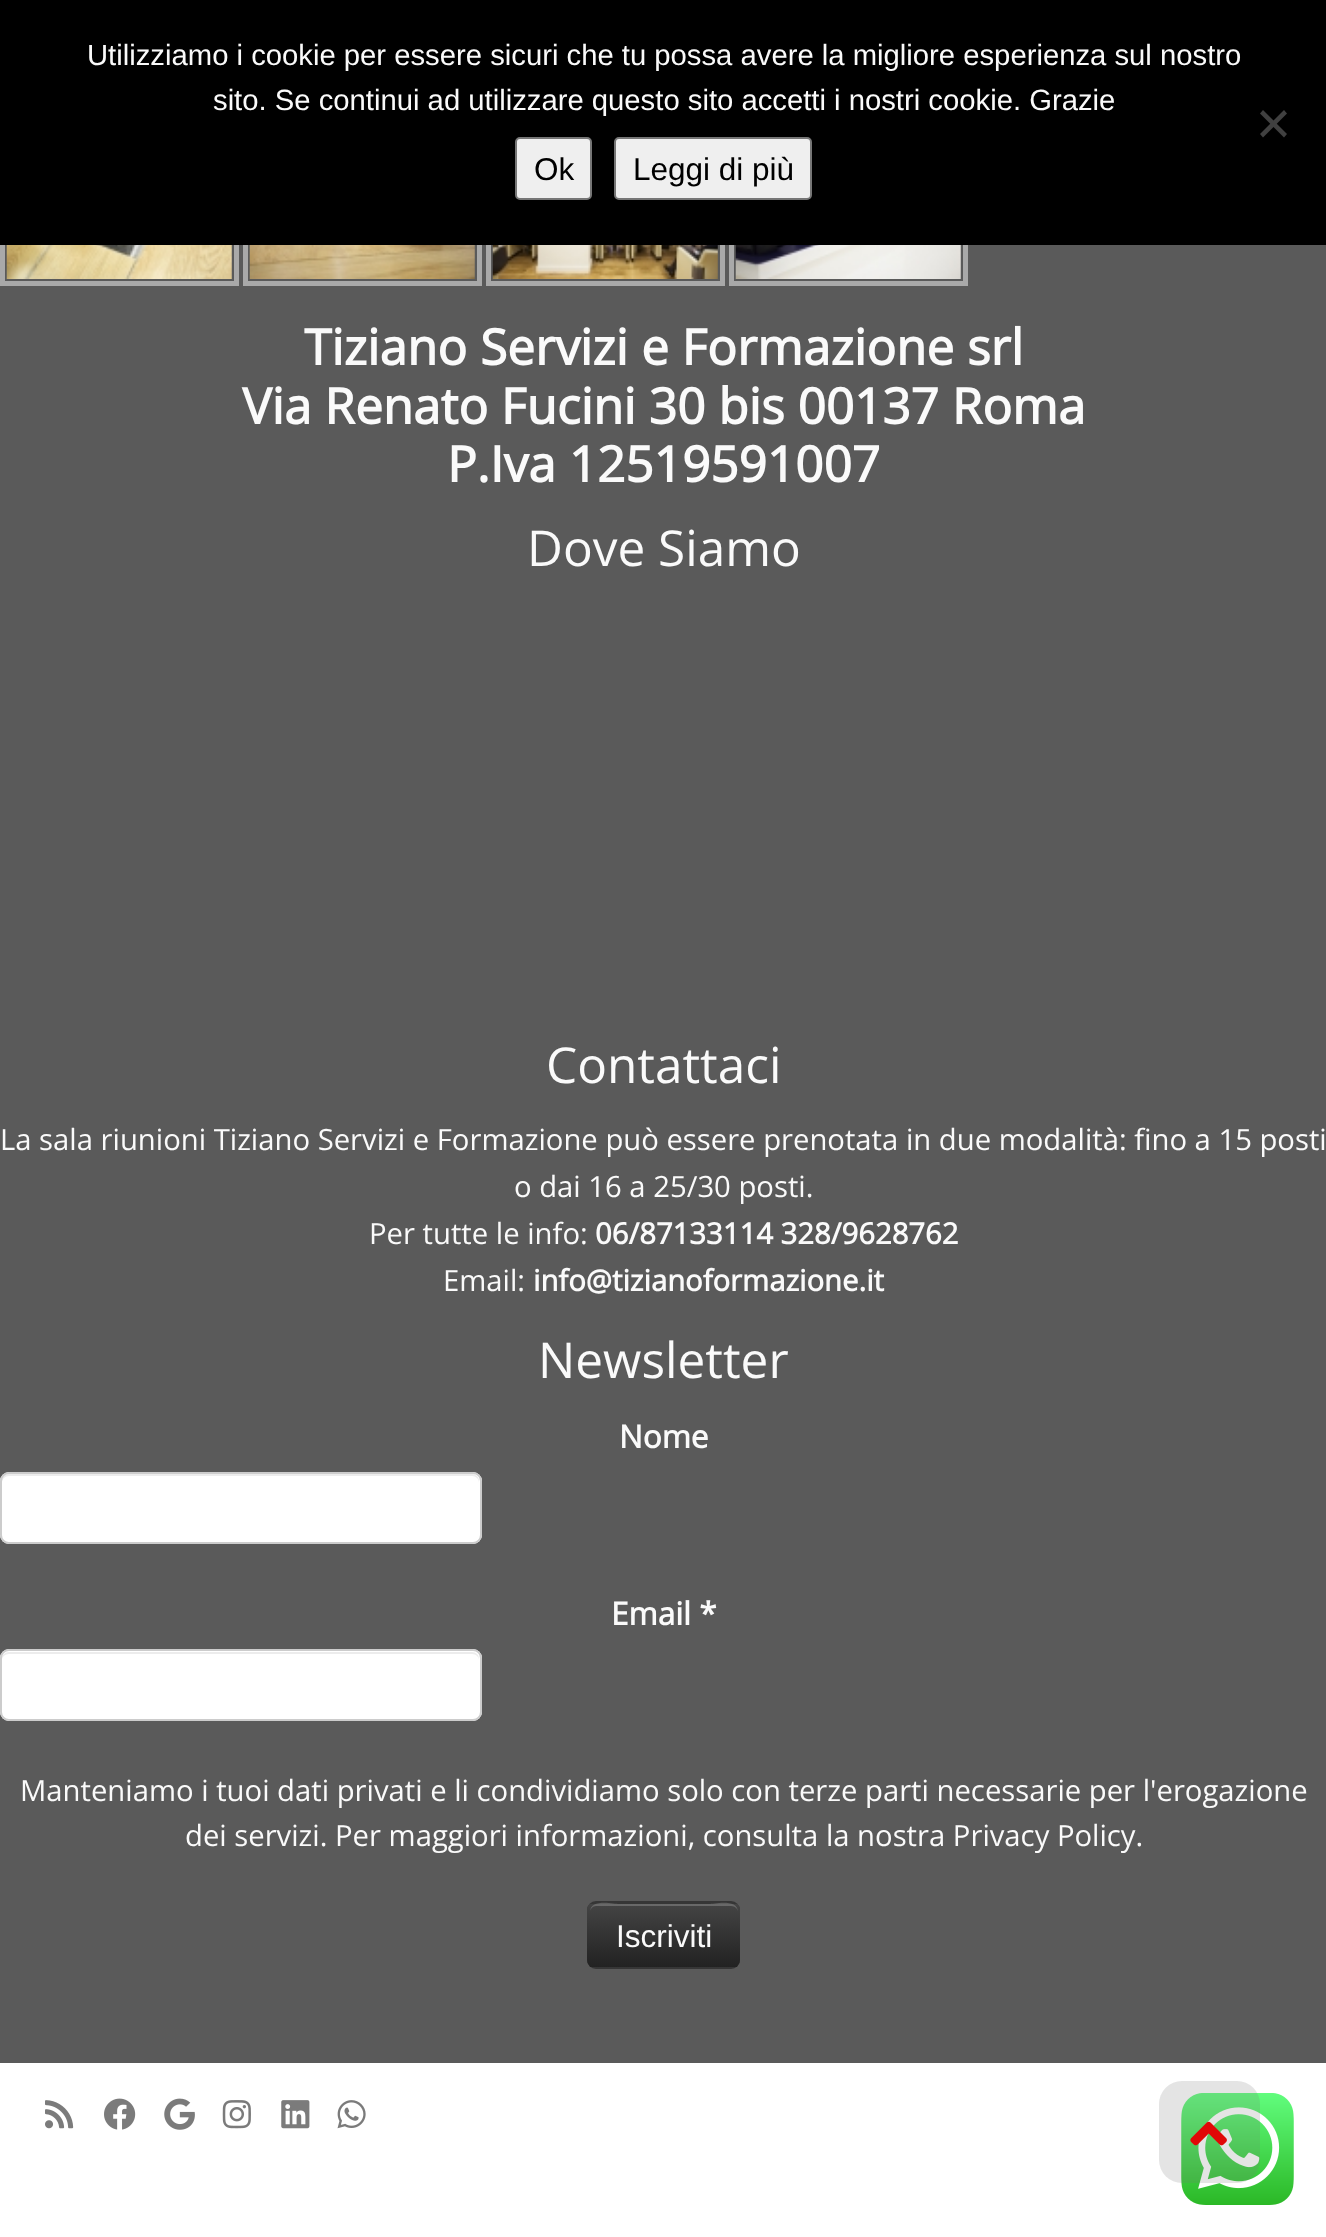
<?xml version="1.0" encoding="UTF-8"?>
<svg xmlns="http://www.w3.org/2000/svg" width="1326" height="2237">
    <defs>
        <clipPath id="clip1"><rect x="587" y="1901" width="153" height="68" rx="9"/></clipPath>
        <linearGradient id="g1" gradientUnits="userSpaceOnUse" x1="664" y1="1904" x2="664" y2="1967"><stop offset="0" stop-color="#444444"/><stop offset="1" stop-color="#222222"/></linearGradient>
    </defs>
    <rect width="100%" height="100%" fill="#5A5A5A"/>
    <rect x="2.5" y="106.5" width="234" height="177" fill="none" stroke="#A9A9A9" stroke-width="5"/>
    <rect x="245.5" y="106.5" width="234" height="177" fill="none" stroke="#A9A9A9" stroke-width="5"/>
    <rect x="488.5" y="106.5" width="234" height="177" fill="none" stroke="#A9A9A9" stroke-width="5"/>
    <rect x="731.5" y="106.5" width="234" height="177" fill="none" stroke="#A9A9A9" stroke-width="5"/>
    <rect x="0" y="0" width="1326" height="245" fill="#000000"/>
    <text x="87" y="65" font-family="Liberation Sans" font-size="29.25" fill="#FAFAFA">Utilizziamo i cookie per essere sicuri che tu possa avere la migliore esperienza sul nostro</text>
    <text x="213" y="110" font-family="Liberation Sans" font-size="29.25" fill="#FAFAFA">sito. Se continui ad utilizzare questo sito accetti i nostri cookie. Grazie</text>
    <path d="M 1284 110 L 1287 113.5 L 1263 137.5 L 1260 134 Z" fill="#404040"/>
    <path d="M 1260 113.5 L 1263 110 L 1287 134 L 1284 137.5 Z" fill="#404040"/>
    <rect x="516" y="138" width="75" height="61" rx="4" fill="#EFEFEF" stroke="#767676" stroke-width="2"/>
    <text x="534" y="180" font-family="Liberation Sans" font-size="31.5" fill="#000000">Ok</text>
    <rect x="615" y="138" width="196" height="61" rx="4" fill="#EFEFEF" stroke="#767676" stroke-width="2"/>
    <text x="633" y="180" font-family="Liberation Sans" font-size="31.5" fill="#000000">Leggi di più</text>
    <image x="6" y="245" width="226" height="34" href="img_01.png"/>
    <image x="249" y="245" width="226" height="34" href="img_02.png"/>
    <image x="492" y="245" width="226" height="34" href="img_03.png"/>
    <image x="735" y="245" width="226" height="34" href="img_04.png"/>
    <text x="304" y="365" font-family="Open Sans" font-size="49.5" font-weight="700" fill="#FAFAFA">Tiziano Servizi e Formazione srl</text>
    <text x="242" y="424" font-family="Open Sans" font-size="49.5" font-weight="700" fill="#FAFAFA">Via Renato Fucini 30 bis 00137 Roma</text>
    <text x="447" y="482" font-family="Open Sans" font-size="49.5" font-weight="700" fill="#FAFAFA">P.Iva 12519591007</text>
    <text x="527" y="566" font-family="Open Sans" font-size="49.5" fill="#FAFAFA">Dove Siamo</text>
    <text x="546" y="1083" font-family="Open Sans" font-size="49.5" fill="#FAFAFA">Contattaci</text>
    <text x="0" y="1150" font-family="Open Sans" font-size="29.25" fill="#FAFAFA">La sala riunioni Tiziano Servizi e Formazione può essere prenotata in due modalità: fino a 15 posti</text>
    <text x="514" y="1197" font-family="Open Sans" font-size="29.25" fill="#FAFAFA">o dai 16 a 25/30 posti.</text>
    <text x="369" y="1244" font-family="Open Sans" font-size="29.25" fill="#FAFAFA">Per tutte le info:</text>
    <text x="595" y="1244" font-family="Open Sans" font-size="29.25" font-weight="700" fill="#FAFAFA">06/87133114 328/9628762</text>
    <text x="443" y="1291" font-family="Open Sans" font-size="29.25" fill="#FAFAFA">Email:</text>
    <text x="533" y="1291" font-family="Open Sans" font-size="29.25" font-weight="700" fill="#FAFAFA">info@tizianoformazione.it</text>
    <text x="538" y="1378" font-family="Open Sans" font-size="49.5" fill="#FAFAFA">Newsletter</text>
    <text x="619" y="1448" font-family="Open Sans" font-size="31.5" font-weight="700" fill="#FAFAFA">Nome</text>
    <rect x="0" y="1472" width="482" height="72" rx="9" fill="#FFFFFF"/>
    <path d="M 9 1476 H 472 C 476 1476 479 1479 479 1483 V 1481 C 479 1477 476 1474 472 1474 H 9 C 5 1474 2 1477 2 1481 V 1483 C 2 1479 5 1476 9 1476 Z" fill="#ECECEC"/>
    <rect x="1" y="1473" width="480" height="70" rx="8" fill="none" stroke="#CCCCCC" stroke-width="2"/>
    <text x="611" y="1625" font-family="Open Sans" font-size="31.5" font-weight="700" fill="#FAFAFA">Email *</text>
    <rect x="0" y="1649" width="482" height="72" rx="9" fill="#FFFFFF"/>
    <path d="M 9 1654 H 472 C 476 1654 479 1657 479 1660 V 1659 C 479 1655 476 1652 472 1652 H 9 C 5 1652 2 1655 2 1659 V 1660 C 2 1657 5 1654 9 1654 Z" fill="#ECECEC"/>
    <rect x="1" y="1650" width="480" height="70" rx="8" fill="none" stroke="#CCCCCC" stroke-width="2"/>
    <text x="20" y="1801" font-family="Open Sans" font-size="29.25" fill="#FAFAFA">Manteniamo i tuoi dati privati e li condividiamo solo con terze parti necessarie per l'erogazione</text>
    <text x="185" y="1846" font-family="Open Sans" font-size="29.25" fill="#FAFAFA">dei servizi. Per maggiori informazioni, consulta la nostra Privacy Policy.</text>
    <rect x="587" y="1901" width="153" height="68" rx="9" fill="#363636"/>
    <g clip-path="url(#clip1)">
        <rect x="587" y="1904" width="153" height="63" fill="url(#g1)"/>
    </g>
    <path d="M 596 1906 H 731 C 735 1906 738 1909 738 1912 C 738 1898 714 1904 709 1904 H 619 C 614 1904 590 1898 590 1912 C 590 1909 593 1906 596 1906 Z" fill="#FFFFFF" fill-opacity="0.2"/>
    <text x="616" y="1947" font-family="Liberation Sans" font-size="31.5" fill="#FAFAFA">Iscriviti</text>
    <rect x="0" y="2063" width="1326" height="174" fill="#FFFFFF"/>
    <image x="45" y="2100" width="29" height="29" href="img_05.png"/>
    <image x="104" y="2098" width="32" height="32" href="img_06.png"/>
    <image x="164" y="2098" width="31" height="32" href="img_07.png"/>
    <image x="222" y="2100" width="29" height="29" href="img_08.png"/>
    <image x="281" y="2100" width="29" height="29" href="img_09.png"/>
    <image x="337" y="2100" width="29" height="29" href="img_10.png"/>
    <image x="1181" y="2093" width="113" height="112" href="img_12.png"/>
    <rect x="1159" y="2081" width="101" height="102" rx="23" fill="#777777" fill-opacity="0.2"/>
    <image x="1190" y="2121" width="37" height="25" href="img_11.png"/>
</svg>
